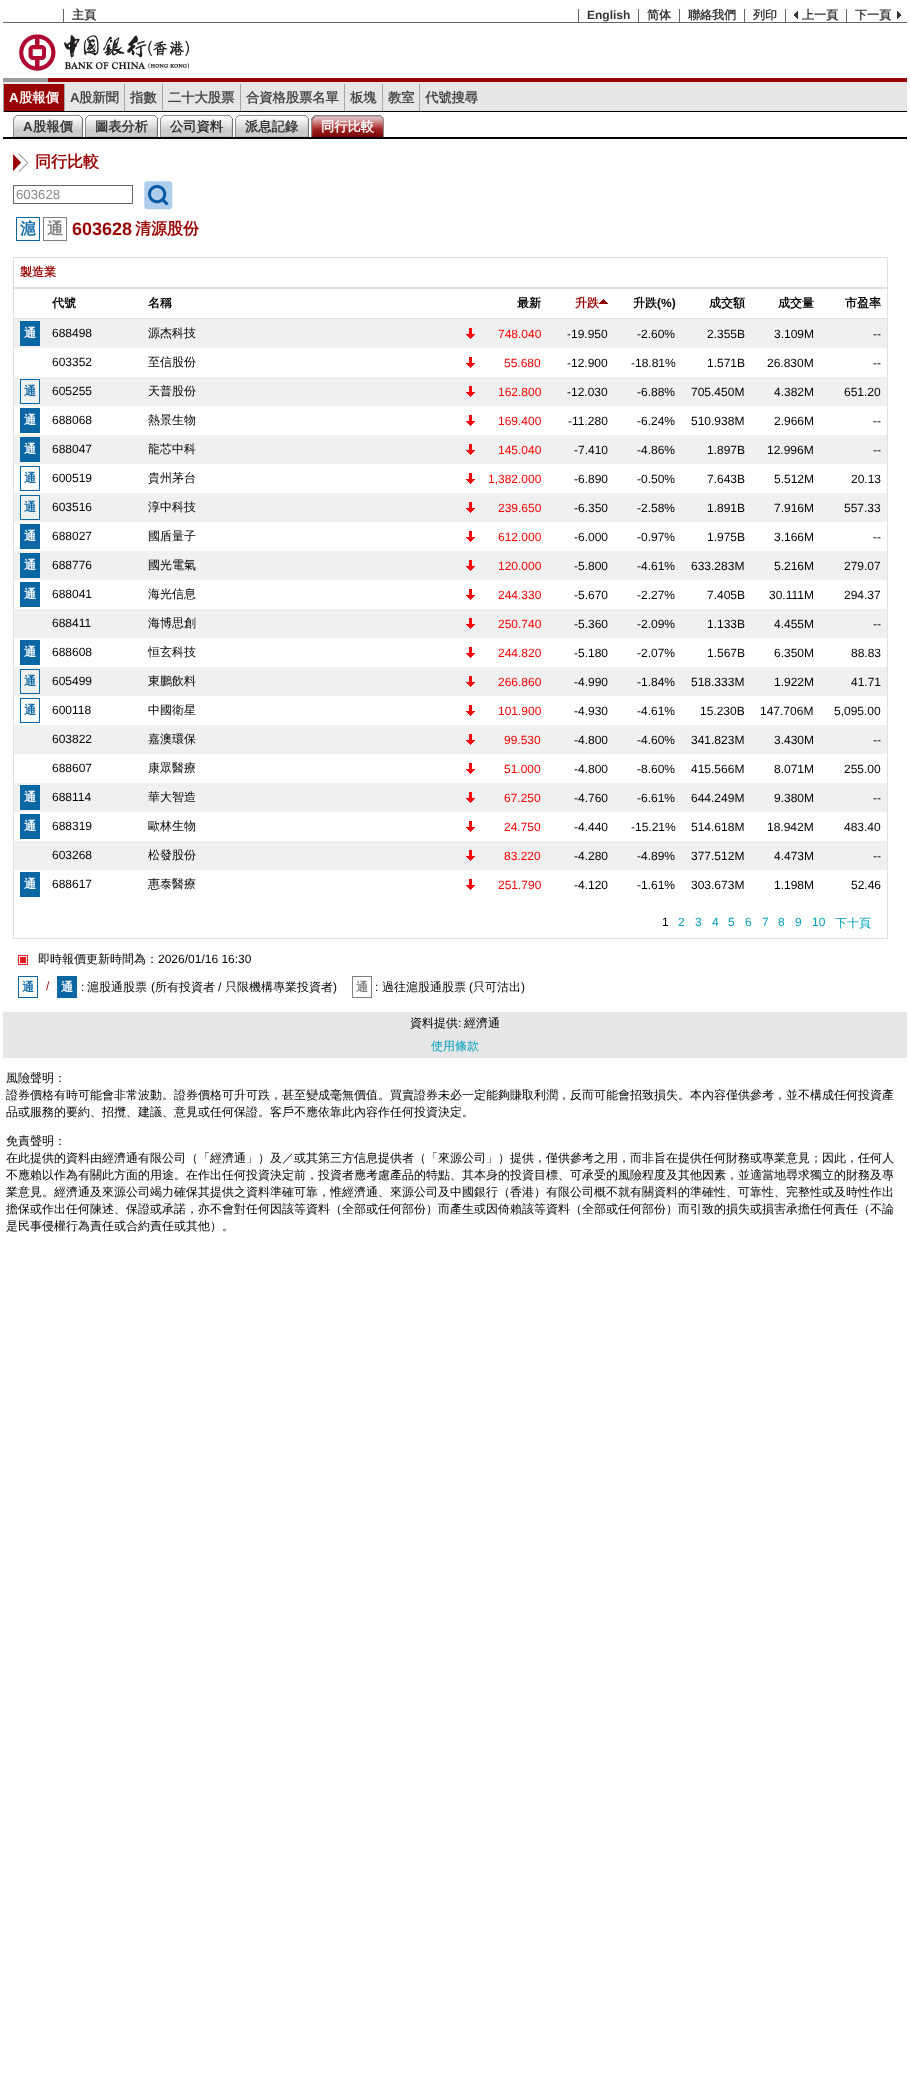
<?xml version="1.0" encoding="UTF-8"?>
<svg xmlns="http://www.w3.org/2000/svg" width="910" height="2099">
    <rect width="100%" height="100%" fill="#FFFFFF"/>
    <rect x="3" y="22" width="904" height="1" fill="#666666"/>
    <rect x="63" y="9" width="1" height="13" fill="#666666"/>
    <text x="72" y="19" font-family="WenQuanYi Zen Hei" font-size="12" font-weight="700" fill="#333333">主頁</text>
    <rect x="578" y="9" width="1" height="13" fill="#666666"/>
    <text x="587" y="19" font-family="Liberation Sans" font-size="12" font-weight="700" fill="#333333">English</text>
    <rect x="638" y="9" width="1" height="13" fill="#666666"/>
    <text x="647" y="19" font-family="WenQuanYi Zen Hei" font-size="12" font-weight="700" fill="#333333">简体</text>
    <rect x="679" y="9" width="1" height="13" fill="#666666"/>
    <text x="688" y="19" font-family="WenQuanYi Zen Hei" font-size="12" font-weight="700" fill="#333333">聯絡我們</text>
    <rect x="744" y="9" width="1" height="13" fill="#666666"/>
    <text x="753" y="19" font-family="WenQuanYi Zen Hei" font-size="12" font-weight="700" fill="#333333">列印</text>
    <image x="794" y="11" width="4" height="8" href="img_01.png"/>
    <rect x="785" y="9" width="1" height="13" fill="#666666"/>
    <text x="802" y="19" font-family="WenQuanYi Zen Hei" font-size="12" font-weight="700" fill="#333333">上一頁</text>
    <image x="897" y="11" width="4" height="8" href="img_02.png"/>
    <rect x="846" y="9" width="1" height="13" fill="#666666"/>
    <text x="855" y="19" font-family="WenQuanYi Zen Hei" font-size="12" font-weight="700" fill="#333333">下一頁</text>
    <image x="19" y="34" width="170" height="37" href="img_03.png"/>
    <rect x="48" y="78" width="859" height="4" fill="#990000"/>
    <rect x="3" y="78" width="45" height="4" fill="#999999"/>
    <rect x="3" y="82" width="904" height="29" fill="#E6E6E6"/>
    <rect x="3" y="111" width="904" height="1" fill="#000000"/>
    <rect x="4" y="84" width="60" height="27" fill="#990000"/>
    <rect x="3" y="84" width="1" height="28" fill="#A7A7A7"/>
    <text x="9" y="102" font-family="Liberation Sans" font-size="13.25" font-weight="700" fill="#FFFFFF">A</text>
    <text x="19" y="102" font-family="WenQuanYi Zen Hei" font-size="13.25" font-weight="700" fill="#FFFFFF">股報價</text>
    <rect x="64" y="84" width="1" height="27" fill="#A7A7A7"/>
    <text x="70" y="102" font-family="Liberation Sans" font-size="13.25" font-weight="700" fill="#474747">A</text>
    <text x="79" y="102" font-family="WenQuanYi Zen Hei" font-size="13.25" font-weight="700" fill="#474747">股新聞</text>
    <rect x="124" y="84" width="1" height="27" fill="#A7A7A7"/>
    <text x="130" y="102" font-family="WenQuanYi Zen Hei" font-size="13.25" font-weight="700" fill="#474747">指數</text>
    <rect x="162" y="84" width="1" height="27" fill="#A7A7A7"/>
    <text x="168" y="102" font-family="WenQuanYi Zen Hei" font-size="13.25" font-weight="700" fill="#474747">二十大股票</text>
    <rect x="240" y="84" width="1" height="27" fill="#A7A7A7"/>
    <text x="246" y="102" font-family="WenQuanYi Zen Hei" font-size="13.25" font-weight="700" fill="#474747">合資格股票名單</text>
    <rect x="344" y="84" width="1" height="27" fill="#A7A7A7"/>
    <text x="350" y="102" font-family="WenQuanYi Zen Hei" font-size="13.25" font-weight="700" fill="#474747">板塊</text>
    <rect x="382" y="84" width="1" height="27" fill="#A7A7A7"/>
    <text x="388" y="102" font-family="WenQuanYi Zen Hei" font-size="13.25" font-weight="700" fill="#474747">教室</text>
    <rect x="419" y="84" width="1" height="27" fill="#A7A7A7"/>
    <text x="425" y="102" font-family="WenQuanYi Zen Hei" font-size="13.25" font-weight="700" fill="#474747">代號搜尋</text>
    <rect x="3" y="137" width="904" height="2" fill="#000000"/>
    <image x="13" y="115" width="6" height="22" href="img_04.png"/>
    <image x="19" y="115" width="58" height="22" href="img_05.png"/>
    <text x="23" y="131" font-family="Liberation Sans" font-size="13.25" font-weight="700" fill="#333333">A</text>
    <text x="33" y="131" font-family="WenQuanYi Zen Hei" font-size="13.25" font-weight="700" fill="#333333">股報價</text>
    <image x="77" y="115" width="6" height="22" href="img_06.png"/>
    <image x="85" y="115" width="6" height="22" href="img_04.png"/>
    <image x="91" y="115" width="61" height="22" href="img_07.png"/>
    <text x="95" y="131" font-family="WenQuanYi Zen Hei" font-size="13.25" font-weight="700" fill="#333333">圖表分析</text>
    <image x="152" y="115" width="6" height="22" href="img_06.png"/>
    <image x="160" y="115" width="6" height="22" href="img_04.png"/>
    <image x="166" y="115" width="61" height="22" href="img_07.png"/>
    <text x="170" y="131" font-family="WenQuanYi Zen Hei" font-size="13.25" font-weight="700" fill="#333333">公司資料</text>
    <image x="227" y="115" width="6" height="22" href="img_06.png"/>
    <image x="235" y="115" width="6" height="22" href="img_04.png"/>
    <image x="241" y="115" width="62" height="22" href="img_08.png"/>
    <text x="245" y="131" font-family="WenQuanYi Zen Hei" font-size="13.25" font-weight="700" fill="#333333">派息記錄</text>
    <image x="303" y="115" width="6" height="22" href="img_06.png"/>
    <image x="311" y="115" width="6" height="22" href="img_09.png"/>
    <image x="317" y="115" width="61" height="22" href="img_10.png"/>
    <text x="321" y="131" font-family="WenQuanYi Zen Hei" font-size="13.25" font-weight="700" fill="#FFFFFF">同行比較</text>
    <image x="378" y="115" width="6" height="22" href="img_11.png"/>
    <image x="13" y="153" width="16" height="19" href="img_12.png"/>
    <text x="35" y="167" font-family="WenQuanYi Zen Hei" font-size="16" font-weight="700" fill="#990000">同行比較</text>
    <rect x="13.5" y="185.5" width="119" height="18" fill="none" stroke="#666666"/>
    <text x="16" y="199" font-family="Liberation Sans" font-size="13.25" fill="#888888">603628</text>
    <image x="144" y="181" width="29" height="29" href="img_13.png"/>
    <rect x="16.5" y="217.5" width="23" height="23" fill="none" stroke="#0B66A4"/>
    <text x="20" y="234" font-family="WenQuanYi Zen Hei" font-size="16" font-weight="700" fill="#0B66A4">滬</text>
    <rect x="43.5" y="217.5" width="23" height="23" fill="none" stroke="#7F7F7F"/>
    <text x="47" y="234" font-family="WenQuanYi Zen Hei" font-size="16" font-weight="700" fill="#7F7F7F">通</text>
    <text x="72" y="235" font-family="Liberation Sans" font-size="18" font-weight="700" fill="#990000">603628</text>
    <text x="135" y="234" font-family="WenQuanYi Zen Hei" font-size="16" font-weight="700" fill="#990000">清源股份</text>
    <rect x="13" y="257" width="875" height="1" fill="#E0E0E0"/>
    <rect x="887" y="257" width="1" height="31" fill="#E0E0E0"/>
    <rect x="13" y="287" width="875" height="2" fill="#E0E0E0"/>
    <rect x="13" y="257" width="1" height="31" fill="#E0E0E0"/>
    <text x="20" y="276" font-family="WenQuanYi Zen Hei" font-size="12" font-weight="700" fill="#990000">製造業</text>
    <rect x="887" y="288" width="1" height="651" fill="#E0E0E0"/>
    <rect x="13" y="938" width="875" height="1" fill="#E0E0E0"/>
    <rect x="13" y="288" width="1" height="651" fill="#E0E0E0"/>
    <text x="52" y="307" font-family="WenQuanYi Zen Hei" font-size="12" font-weight="700" fill="#000000">代號</text>
    <text x="148" y="307" font-family="WenQuanYi Zen Hei" font-size="12" font-weight="700" fill="#000000">名稱</text>
    <text x="517" y="307" font-family="WenQuanYi Zen Hei" font-size="12" font-weight="700" fill="#000000">最新</text>
    <text x="575" y="307" font-family="WenQuanYi Zen Hei" font-size="12" font-weight="700" fill="#990000">升跌</text>
    <image x="599" y="299" width="9" height="5" href="img_14.png"/>
    <text x="633" y="307" font-family="WenQuanYi Zen Hei" font-size="12" font-weight="700" fill="#000000">升跌</text>
    <text x="657" y="307" font-family="Liberation Sans" font-size="12" font-weight="700" fill="#000000">(%)</text>
    <text x="709" y="307" font-family="WenQuanYi Zen Hei" font-size="12" font-weight="700" fill="#000000">成交額</text>
    <text x="778" y="307" font-family="WenQuanYi Zen Hei" font-size="12" font-weight="700" fill="#000000">成交量</text>
    <rect x="13" y="318" width="875" height="1" fill="#E0E0E0"/>
    <text x="845" y="307" font-family="WenQuanYi Zen Hei" font-size="12" font-weight="700" fill="#000000">市盈率</text>
    <rect x="14" y="319" width="873" height="29" fill="#EFF0F0"/>
    <rect x="20" y="321" width="20" height="25" fill="#0B66A4"/>
    <text x="24" y="337" font-family="WenQuanYi Zen Hei" font-size="12" font-weight="700" fill="#FFFFFF">通</text>
    <text x="52" y="337" font-family="Liberation Sans" font-size="12" fill="#000000">688498</text>
    <text x="148" y="337" font-family="WenQuanYi Zen Hei" font-size="12" font-weight="500" fill="#000000">源杰科技</text>
    <image x="466" y="328" width="9" height="11" href="img_15.png"/>
    <text x="498" y="338" font-family="Liberation Sans" font-size="12" fill="#FF0000">748.040</text>
    <text x="567" y="338" font-family="Liberation Sans" font-size="12" fill="#000000">-19.950</text>
    <text x="637" y="338" font-family="Liberation Sans" font-size="12" fill="#000000">-2.60%</text>
    <text x="707" y="338" font-family="Liberation Sans" font-size="12" fill="#000000">2.355B</text>
    <text x="774" y="338" font-family="Liberation Sans" font-size="12" fill="#000000">3.109M</text>
    <text x="873" y="338" font-family="Liberation Sans" font-size="12" fill="#000000">--</text>
    <text x="52" y="366" font-family="Liberation Sans" font-size="12" fill="#000000">603352</text>
    <text x="148" y="366" font-family="WenQuanYi Zen Hei" font-size="12" font-weight="500" fill="#000000">至信股份</text>
    <image x="466" y="357" width="9" height="11" href="img_16.png"/>
    <text x="504" y="367" font-family="Liberation Sans" font-size="12" fill="#FF0000">55.680</text>
    <text x="567" y="367" font-family="Liberation Sans" font-size="12" fill="#000000">-12.900</text>
    <text x="631" y="367" font-family="Liberation Sans" font-size="12" fill="#000000">-18.81%</text>
    <text x="707" y="367" font-family="Liberation Sans" font-size="12" fill="#000000">1.571B</text>
    <text x="767" y="367" font-family="Liberation Sans" font-size="12" fill="#000000">26.830M</text>
    <text x="873" y="367" font-family="Liberation Sans" font-size="12" fill="#000000">--</text>
    <rect x="14" y="377" width="873" height="29" fill="#EFF0F0"/>
    <rect x="20.5" y="379.5" width="19" height="24" fill="none" stroke="#0B66A4"/>
    <text x="24" y="395" font-family="WenQuanYi Zen Hei" font-size="12" font-weight="700" fill="#0B66A4">通</text>
    <text x="52" y="395" font-family="Liberation Sans" font-size="12" fill="#000000">605255</text>
    <text x="148" y="395" font-family="WenQuanYi Zen Hei" font-size="12" font-weight="500" fill="#000000">天普股份</text>
    <image x="466" y="386" width="9" height="11" href="img_15.png"/>
    <text x="498" y="396" font-family="Liberation Sans" font-size="12" fill="#FF0000">162.800</text>
    <text x="567" y="396" font-family="Liberation Sans" font-size="12" fill="#000000">-12.030</text>
    <text x="637" y="396" font-family="Liberation Sans" font-size="12" fill="#000000">-6.88%</text>
    <text x="691" y="396" font-family="Liberation Sans" font-size="12" fill="#000000">705.450M</text>
    <text x="774" y="396" font-family="Liberation Sans" font-size="12" fill="#000000">4.382M</text>
    <text x="844" y="396" font-family="Liberation Sans" font-size="12" fill="#000000">651.20</text>
    <rect x="20" y="408" width="20" height="25" fill="#0B66A4"/>
    <text x="24" y="424" font-family="WenQuanYi Zen Hei" font-size="12" font-weight="700" fill="#FFFFFF">通</text>
    <text x="52" y="424" font-family="Liberation Sans" font-size="12" fill="#000000">688068</text>
    <text x="148" y="424" font-family="WenQuanYi Zen Hei" font-size="12" font-weight="500" fill="#000000">熱景生物</text>
    <image x="466" y="415" width="9" height="11" href="img_16.png"/>
    <text x="498" y="425" font-family="Liberation Sans" font-size="12" fill="#FF0000">169.400</text>
    <text x="568" y="425" font-family="Liberation Sans" font-size="12" fill="#000000">-11.280</text>
    <text x="637" y="425" font-family="Liberation Sans" font-size="12" fill="#000000">-6.24%</text>
    <text x="691" y="425" font-family="Liberation Sans" font-size="12" fill="#000000">510.938M</text>
    <text x="774" y="425" font-family="Liberation Sans" font-size="12" fill="#000000">2.966M</text>
    <text x="873" y="425" font-family="Liberation Sans" font-size="12" fill="#000000">--</text>
    <rect x="14" y="435" width="873" height="29" fill="#EFF0F0"/>
    <rect x="20" y="437" width="20" height="25" fill="#0B66A4"/>
    <text x="24" y="453" font-family="WenQuanYi Zen Hei" font-size="12" font-weight="700" fill="#FFFFFF">通</text>
    <text x="52" y="453" font-family="Liberation Sans" font-size="12" fill="#000000">688047</text>
    <text x="148" y="453" font-family="WenQuanYi Zen Hei" font-size="12" font-weight="500" fill="#000000">龍芯中科</text>
    <image x="466" y="444" width="9" height="11" href="img_15.png"/>
    <text x="498" y="454" font-family="Liberation Sans" font-size="12" fill="#FF0000">145.040</text>
    <text x="574" y="454" font-family="Liberation Sans" font-size="12" fill="#000000">-7.410</text>
    <text x="637" y="454" font-family="Liberation Sans" font-size="12" fill="#000000">-4.86%</text>
    <text x="707" y="454" font-family="Liberation Sans" font-size="12" fill="#000000">1.897B</text>
    <text x="767" y="454" font-family="Liberation Sans" font-size="12" fill="#000000">12.996M</text>
    <text x="873" y="454" font-family="Liberation Sans" font-size="12" fill="#000000">--</text>
    <rect x="20.5" y="466.5" width="19" height="24" fill="none" stroke="#0B66A4"/>
    <text x="24" y="482" font-family="WenQuanYi Zen Hei" font-size="12" font-weight="700" fill="#0B66A4">通</text>
    <text x="52" y="482" font-family="Liberation Sans" font-size="12" fill="#000000">600519</text>
    <text x="148" y="482" font-family="WenQuanYi Zen Hei" font-size="12" font-weight="500" fill="#000000">貴州茅台</text>
    <image x="466" y="473" width="9" height="11" href="img_16.png"/>
    <text x="488" y="483" font-family="Liberation Sans" font-size="12" fill="#FF0000">1,382.000</text>
    <text x="574" y="483" font-family="Liberation Sans" font-size="12" fill="#000000">-6.890</text>
    <text x="637" y="483" font-family="Liberation Sans" font-size="12" fill="#000000">-0.50%</text>
    <text x="707" y="483" font-family="Liberation Sans" font-size="12" fill="#000000">7.643B</text>
    <text x="774" y="483" font-family="Liberation Sans" font-size="12" fill="#000000">5.512M</text>
    <text x="851" y="483" font-family="Liberation Sans" font-size="12" fill="#000000">20.13</text>
    <rect x="14" y="493" width="873" height="29" fill="#EFF0F0"/>
    <rect x="20.5" y="495.5" width="19" height="24" fill="none" stroke="#0B66A4"/>
    <text x="24" y="511" font-family="WenQuanYi Zen Hei" font-size="12" font-weight="700" fill="#0B66A4">通</text>
    <text x="52" y="511" font-family="Liberation Sans" font-size="12" fill="#000000">603516</text>
    <text x="148" y="511" font-family="WenQuanYi Zen Hei" font-size="12" font-weight="500" fill="#000000">淳中科技</text>
    <image x="466" y="502" width="9" height="11" href="img_15.png"/>
    <text x="498" y="512" font-family="Liberation Sans" font-size="12" fill="#FF0000">239.650</text>
    <text x="574" y="512" font-family="Liberation Sans" font-size="12" fill="#000000">-6.350</text>
    <text x="637" y="512" font-family="Liberation Sans" font-size="12" fill="#000000">-2.58%</text>
    <text x="707" y="512" font-family="Liberation Sans" font-size="12" fill="#000000">1.891B</text>
    <text x="774" y="512" font-family="Liberation Sans" font-size="12" fill="#000000">7.916M</text>
    <text x="844" y="512" font-family="Liberation Sans" font-size="12" fill="#000000">557.33</text>
    <rect x="20" y="524" width="20" height="25" fill="#0B66A4"/>
    <text x="24" y="540" font-family="WenQuanYi Zen Hei" font-size="12" font-weight="700" fill="#FFFFFF">通</text>
    <text x="52" y="540" font-family="Liberation Sans" font-size="12" fill="#000000">688027</text>
    <text x="148" y="540" font-family="WenQuanYi Zen Hei" font-size="12" font-weight="500" fill="#000000">國盾量子</text>
    <image x="466" y="531" width="9" height="11" href="img_16.png"/>
    <text x="498" y="541" font-family="Liberation Sans" font-size="12" fill="#FF0000">612.000</text>
    <text x="574" y="541" font-family="Liberation Sans" font-size="12" fill="#000000">-6.000</text>
    <text x="637" y="541" font-family="Liberation Sans" font-size="12" fill="#000000">-0.97%</text>
    <text x="707" y="541" font-family="Liberation Sans" font-size="12" fill="#000000">1.975B</text>
    <text x="774" y="541" font-family="Liberation Sans" font-size="12" fill="#000000">3.166M</text>
    <text x="873" y="541" font-family="Liberation Sans" font-size="12" fill="#000000">--</text>
    <rect x="14" y="551" width="873" height="29" fill="#EFF0F0"/>
    <rect x="20" y="553" width="20" height="25" fill="#0B66A4"/>
    <text x="24" y="569" font-family="WenQuanYi Zen Hei" font-size="12" font-weight="700" fill="#FFFFFF">通</text>
    <text x="52" y="569" font-family="Liberation Sans" font-size="12" fill="#000000">688776</text>
    <text x="148" y="569" font-family="WenQuanYi Zen Hei" font-size="12" font-weight="500" fill="#000000">國光電氣</text>
    <image x="466" y="560" width="9" height="11" href="img_15.png"/>
    <text x="498" y="570" font-family="Liberation Sans" font-size="12" fill="#FF0000">120.000</text>
    <text x="574" y="570" font-family="Liberation Sans" font-size="12" fill="#000000">-5.800</text>
    <text x="637" y="570" font-family="Liberation Sans" font-size="12" fill="#000000">-4.61%</text>
    <text x="691" y="570" font-family="Liberation Sans" font-size="12" fill="#000000">633.283M</text>
    <text x="774" y="570" font-family="Liberation Sans" font-size="12" fill="#000000">5.216M</text>
    <text x="844" y="570" font-family="Liberation Sans" font-size="12" fill="#000000">279.07</text>
    <rect x="20" y="582" width="20" height="25" fill="#0B66A4"/>
    <text x="24" y="598" font-family="WenQuanYi Zen Hei" font-size="12" font-weight="700" fill="#FFFFFF">通</text>
    <text x="52" y="598" font-family="Liberation Sans" font-size="12" fill="#000000">688041</text>
    <text x="148" y="598" font-family="WenQuanYi Zen Hei" font-size="12" font-weight="500" fill="#000000">海光信息</text>
    <image x="466" y="589" width="9" height="11" href="img_16.png"/>
    <text x="498" y="599" font-family="Liberation Sans" font-size="12" fill="#FF0000">244.330</text>
    <text x="574" y="599" font-family="Liberation Sans" font-size="12" fill="#000000">-5.670</text>
    <text x="637" y="599" font-family="Liberation Sans" font-size="12" fill="#000000">-2.27%</text>
    <text x="707" y="599" font-family="Liberation Sans" font-size="12" fill="#000000">7.405B</text>
    <text x="769" y="599" font-family="Liberation Sans" font-size="12" fill="#000000">30.111M</text>
    <text x="844" y="599" font-family="Liberation Sans" font-size="12" fill="#000000">294.37</text>
    <rect x="14" y="609" width="873" height="29" fill="#EFF0F0"/>
    <text x="52" y="627" font-family="Liberation Sans" font-size="12" fill="#000000">688411</text>
    <text x="148" y="627" font-family="WenQuanYi Zen Hei" font-size="12" font-weight="500" fill="#000000">海博思創</text>
    <image x="466" y="618" width="9" height="11" href="img_15.png"/>
    <text x="498" y="628" font-family="Liberation Sans" font-size="12" fill="#FF0000">250.740</text>
    <text x="574" y="628" font-family="Liberation Sans" font-size="12" fill="#000000">-5.360</text>
    <text x="637" y="628" font-family="Liberation Sans" font-size="12" fill="#000000">-2.09%</text>
    <text x="707" y="628" font-family="Liberation Sans" font-size="12" fill="#000000">1.133B</text>
    <text x="774" y="628" font-family="Liberation Sans" font-size="12" fill="#000000">4.455M</text>
    <text x="873" y="628" font-family="Liberation Sans" font-size="12" fill="#000000">--</text>
    <rect x="20" y="640" width="20" height="25" fill="#0B66A4"/>
    <text x="24" y="656" font-family="WenQuanYi Zen Hei" font-size="12" font-weight="700" fill="#FFFFFF">通</text>
    <text x="52" y="656" font-family="Liberation Sans" font-size="12" fill="#000000">688608</text>
    <text x="148" y="656" font-family="WenQuanYi Zen Hei" font-size="12" font-weight="500" fill="#000000">恒玄科技</text>
    <image x="466" y="647" width="9" height="11" href="img_16.png"/>
    <text x="498" y="657" font-family="Liberation Sans" font-size="12" fill="#FF0000">244.820</text>
    <text x="574" y="657" font-family="Liberation Sans" font-size="12" fill="#000000">-5.180</text>
    <text x="637" y="657" font-family="Liberation Sans" font-size="12" fill="#000000">-2.07%</text>
    <text x="707" y="657" font-family="Liberation Sans" font-size="12" fill="#000000">1.567B</text>
    <text x="774" y="657" font-family="Liberation Sans" font-size="12" fill="#000000">6.350M</text>
    <text x="851" y="657" font-family="Liberation Sans" font-size="12" fill="#000000">88.83</text>
    <rect x="14" y="667" width="873" height="29" fill="#EFF0F0"/>
    <rect x="20.5" y="669.5" width="19" height="24" fill="none" stroke="#0B66A4"/>
    <text x="24" y="685" font-family="WenQuanYi Zen Hei" font-size="12" font-weight="700" fill="#0B66A4">通</text>
    <text x="52" y="685" font-family="Liberation Sans" font-size="12" fill="#000000">605499</text>
    <text x="148" y="685" font-family="WenQuanYi Zen Hei" font-size="12" font-weight="500" fill="#000000">東鵬飲料</text>
    <image x="466" y="676" width="9" height="11" href="img_15.png"/>
    <text x="498" y="686" font-family="Liberation Sans" font-size="12" fill="#FF0000">266.860</text>
    <text x="574" y="686" font-family="Liberation Sans" font-size="12" fill="#000000">-4.990</text>
    <text x="637" y="686" font-family="Liberation Sans" font-size="12" fill="#000000">-1.84%</text>
    <text x="691" y="686" font-family="Liberation Sans" font-size="12" fill="#000000">518.333M</text>
    <text x="774" y="686" font-family="Liberation Sans" font-size="12" fill="#000000">1.922M</text>
    <text x="851" y="686" font-family="Liberation Sans" font-size="12" fill="#000000">41.71</text>
    <rect x="20.5" y="698.5" width="19" height="24" fill="none" stroke="#0B66A4"/>
    <text x="24" y="714" font-family="WenQuanYi Zen Hei" font-size="12" font-weight="700" fill="#0B66A4">通</text>
    <text x="52" y="714" font-family="Liberation Sans" font-size="12" fill="#000000">600118</text>
    <text x="148" y="714" font-family="WenQuanYi Zen Hei" font-size="12" font-weight="500" fill="#000000">中國衛星</text>
    <image x="466" y="705" width="9" height="11" href="img_16.png"/>
    <text x="498" y="715" font-family="Liberation Sans" font-size="12" fill="#FF0000">101.900</text>
    <text x="574" y="715" font-family="Liberation Sans" font-size="12" fill="#000000">-4.930</text>
    <text x="637" y="715" font-family="Liberation Sans" font-size="12" fill="#000000">-4.61%</text>
    <text x="700" y="715" font-family="Liberation Sans" font-size="12" fill="#000000">15.230B</text>
    <text x="760" y="715" font-family="Liberation Sans" font-size="12" fill="#000000">147.706M</text>
    <text x="834" y="715" font-family="Liberation Sans" font-size="12" fill="#000000">5,095.00</text>
    <rect x="14" y="725" width="873" height="29" fill="#EFF0F0"/>
    <text x="52" y="743" font-family="Liberation Sans" font-size="12" fill="#000000">603822</text>
    <text x="148" y="743" font-family="WenQuanYi Zen Hei" font-size="12" font-weight="500" fill="#000000">嘉澳環保</text>
    <image x="466" y="734" width="9" height="11" href="img_15.png"/>
    <text x="504" y="744" font-family="Liberation Sans" font-size="12" fill="#FF0000">99.530</text>
    <text x="574" y="744" font-family="Liberation Sans" font-size="12" fill="#000000">-4.800</text>
    <text x="637" y="744" font-family="Liberation Sans" font-size="12" fill="#000000">-4.60%</text>
    <text x="691" y="744" font-family="Liberation Sans" font-size="12" fill="#000000">341.823M</text>
    <text x="774" y="744" font-family="Liberation Sans" font-size="12" fill="#000000">3.430M</text>
    <text x="873" y="744" font-family="Liberation Sans" font-size="12" fill="#000000">--</text>
    <text x="52" y="772" font-family="Liberation Sans" font-size="12" fill="#000000">688607</text>
    <text x="148" y="772" font-family="WenQuanYi Zen Hei" font-size="12" font-weight="500" fill="#000000">康眾醫療</text>
    <image x="466" y="763" width="9" height="11" href="img_16.png"/>
    <text x="504" y="773" font-family="Liberation Sans" font-size="12" fill="#FF0000">51.000</text>
    <text x="574" y="773" font-family="Liberation Sans" font-size="12" fill="#000000">-4.800</text>
    <text x="637" y="773" font-family="Liberation Sans" font-size="12" fill="#000000">-8.60%</text>
    <text x="691" y="773" font-family="Liberation Sans" font-size="12" fill="#000000">415.566M</text>
    <text x="774" y="773" font-family="Liberation Sans" font-size="12" fill="#000000">8.071M</text>
    <text x="844" y="773" font-family="Liberation Sans" font-size="12" fill="#000000">255.00</text>
    <rect x="14" y="783" width="873" height="29" fill="#EFF0F0"/>
    <rect x="20" y="785" width="20" height="25" fill="#0B66A4"/>
    <text x="24" y="801" font-family="WenQuanYi Zen Hei" font-size="12" font-weight="700" fill="#FFFFFF">通</text>
    <text x="52" y="801" font-family="Liberation Sans" font-size="12" fill="#000000">688114</text>
    <text x="148" y="801" font-family="WenQuanYi Zen Hei" font-size="12" font-weight="500" fill="#000000">華大智造</text>
    <image x="466" y="792" width="9" height="11" href="img_15.png"/>
    <text x="504" y="802" font-family="Liberation Sans" font-size="12" fill="#FF0000">67.250</text>
    <text x="574" y="802" font-family="Liberation Sans" font-size="12" fill="#000000">-4.760</text>
    <text x="637" y="802" font-family="Liberation Sans" font-size="12" fill="#000000">-6.61%</text>
    <text x="691" y="802" font-family="Liberation Sans" font-size="12" fill="#000000">644.249M</text>
    <text x="774" y="802" font-family="Liberation Sans" font-size="12" fill="#000000">9.380M</text>
    <text x="873" y="802" font-family="Liberation Sans" font-size="12" fill="#000000">--</text>
    <rect x="20" y="814" width="20" height="25" fill="#0B66A4"/>
    <text x="24" y="830" font-family="WenQuanYi Zen Hei" font-size="12" font-weight="700" fill="#FFFFFF">通</text>
    <text x="52" y="830" font-family="Liberation Sans" font-size="12" fill="#000000">688319</text>
    <text x="148" y="830" font-family="WenQuanYi Zen Hei" font-size="12" font-weight="500" fill="#000000">歐林生物</text>
    <image x="466" y="821" width="9" height="11" href="img_16.png"/>
    <text x="504" y="831" font-family="Liberation Sans" font-size="12" fill="#FF0000">24.750</text>
    <text x="574" y="831" font-family="Liberation Sans" font-size="12" fill="#000000">-4.440</text>
    <text x="631" y="831" font-family="Liberation Sans" font-size="12" fill="#000000">-15.21%</text>
    <text x="691" y="831" font-family="Liberation Sans" font-size="12" fill="#000000">514.618M</text>
    <text x="767" y="831" font-family="Liberation Sans" font-size="12" fill="#000000">18.942M</text>
    <text x="844" y="831" font-family="Liberation Sans" font-size="12" fill="#000000">483.40</text>
    <rect x="14" y="841" width="873" height="29" fill="#EFF0F0"/>
    <text x="52" y="859" font-family="Liberation Sans" font-size="12" fill="#000000">603268</text>
    <text x="148" y="859" font-family="WenQuanYi Zen Hei" font-size="12" font-weight="500" fill="#000000">松發股份</text>
    <image x="466" y="850" width="9" height="11" href="img_15.png"/>
    <text x="504" y="860" font-family="Liberation Sans" font-size="12" fill="#FF0000">83.220</text>
    <text x="574" y="860" font-family="Liberation Sans" font-size="12" fill="#000000">-4.280</text>
    <text x="637" y="860" font-family="Liberation Sans" font-size="12" fill="#000000">-4.89%</text>
    <text x="691" y="860" font-family="Liberation Sans" font-size="12" fill="#000000">377.512M</text>
    <text x="774" y="860" font-family="Liberation Sans" font-size="12" fill="#000000">4.473M</text>
    <text x="873" y="860" font-family="Liberation Sans" font-size="12" fill="#000000">--</text>
    <rect x="20" y="872" width="20" height="25" fill="#0B66A4"/>
    <text x="24" y="888" font-family="WenQuanYi Zen Hei" font-size="12" font-weight="700" fill="#FFFFFF">通</text>
    <text x="52" y="888" font-family="Liberation Sans" font-size="12" fill="#000000">688617</text>
    <text x="148" y="888" font-family="WenQuanYi Zen Hei" font-size="12" font-weight="500" fill="#000000">惠泰醫療</text>
    <image x="466" y="879" width="9" height="11" href="img_16.png"/>
    <text x="498" y="889" font-family="Liberation Sans" font-size="12" fill="#FF0000">251.790</text>
    <text x="574" y="889" font-family="Liberation Sans" font-size="12" fill="#000000">-4.120</text>
    <text x="637" y="889" font-family="Liberation Sans" font-size="12" fill="#000000">-1.61%</text>
    <text x="691" y="889" font-family="Liberation Sans" font-size="12" fill="#000000">303.673M</text>
    <text x="774" y="889" font-family="Liberation Sans" font-size="12" fill="#000000">1.198M</text>
    <text x="851" y="889" font-family="Liberation Sans" font-size="12" fill="#000000">52.46</text>
    <text x="662" y="926" font-family="Liberation Sans" font-size="12" fill="#000000">1</text>
    <text x="678" y="926" font-family="Liberation Sans" font-size="12" fill="#00A1BD">2</text>
    <text x="695" y="926" font-family="Liberation Sans" font-size="12" fill="#00A1BD">3</text>
    <text x="712" y="926" font-family="Liberation Sans" font-size="12" fill="#00A1BD">4</text>
    <text x="728" y="926" font-family="Liberation Sans" font-size="12" fill="#00A1BD">5</text>
    <text x="745" y="926" font-family="Liberation Sans" font-size="12" fill="#00A1BD">6</text>
    <text x="762" y="926" font-family="Liberation Sans" font-size="12" fill="#00A1BD">7</text>
    <text x="778" y="926" font-family="Liberation Sans" font-size="12" fill="#00A1BD">8</text>
    <text x="795" y="926" font-family="Liberation Sans" font-size="12" fill="#00A1BD">9</text>
    <text x="812" y="926" font-family="Liberation Sans" font-size="12" fill="#00A1BD">10</text>
    <text x="835" y="927" font-family="WenQuanYi Zen Hei" font-size="12" font-weight="500" fill="#00A1BD">下十頁</text>
    <image x="18" y="955" width="10" height="10" href="img_17.png"/>
    <text x="38" y="963" font-family="WenQuanYi Zen Hei" font-size="12" font-weight="500" fill="#000000">即時報價更新時間為：</text>
    <text x="158" y="963" font-family="Liberation Sans" font-size="12" fill="#000000">2026/01/16 16:30</text>
    <rect x="18.5" y="976.5" width="19" height="21" fill="none" stroke="#0B66A4"/>
    <text x="22" y="991" font-family="WenQuanYi Zen Hei" font-size="12" font-weight="700" fill="#0B66A4">通</text>
    <text x="46" y="990" font-family="Liberation Sans" font-size="12" fill="#990000">/</text>
    <rect x="57" y="976" width="20" height="22" fill="#0B66A4"/>
    <text x="61" y="991" font-family="WenQuanYi Zen Hei" font-size="12" font-weight="700" fill="#FFFFFF">通</text>
    <text x="81" y="991" font-family="Liberation Sans" font-size="12" fill="#000000">:</text>
    <text x="87" y="991" font-family="WenQuanYi Zen Hei" font-size="12" font-weight="500" fill="#000000">滬股通股票</text>
    <text x="151" y="991" font-family="Liberation Sans" font-size="12" fill="#000000">(</text>
    <text x="155" y="991" font-family="WenQuanYi Zen Hei" font-size="12" font-weight="500" fill="#000000">所有投資者</text>
    <text x="218" y="991" font-family="Liberation Sans" font-size="12" fill="#000000">/</text>
    <text x="225" y="991" font-family="WenQuanYi Zen Hei" font-size="12" font-weight="500" fill="#000000">只限機構專業投資者</text>
    <text x="333" y="991" font-family="Liberation Sans" font-size="12" fill="#000000">)</text>
    <rect x="352.5" y="976.5" width="19" height="21" fill="none" stroke="#7F7F7F"/>
    <text x="356" y="991" font-family="WenQuanYi Zen Hei" font-size="12" font-weight="700" fill="#7F7F7F">通</text>
    <text x="375" y="991" font-family="Liberation Sans" font-size="12" fill="#000000">:</text>
    <text x="382" y="991" font-family="WenQuanYi Zen Hei" font-size="12" font-weight="500" fill="#000000">過往滬股通股票</text>
    <text x="469" y="991" font-family="Liberation Sans" font-size="12" fill="#000000">(</text>
    <text x="473" y="991" font-family="WenQuanYi Zen Hei" font-size="12" font-weight="500" fill="#000000">只可沽出</text>
    <text x="521" y="991" font-family="Liberation Sans" font-size="12" fill="#000000">)</text>
    <rect x="3" y="1012" width="904" height="46" fill="#E6E6E6"/>
    <text x="410" y="1027" font-family="WenQuanYi Zen Hei" font-size="12" font-weight="500" fill="#000000">資料提供</text>
    <text x="458" y="1027" font-family="Liberation Sans" font-size="12" fill="#000000">:</text>
    <text x="464" y="1027" font-family="WenQuanYi Zen Hei" font-size="12" font-weight="500" fill="#000000">經濟通</text>
    <text x="431" y="1050" font-family="WenQuanYi Zen Hei" font-size="12" font-weight="500" fill="#00A1BD">使用條款</text>
    <text font-family="WenQuanYi Zen Hei" font-size="12" font-weight="500" fill="#000000">
        <tspan x="6" y="1082">風險聲明：</tspan>
        <tspan x="6" y="1099">證券價格有時可能會非常波動。證券價格可升可跌，甚至變成毫無價值。買賣證券未必一定能夠賺取利潤，反而可能會招致損失。本內容僅供參考，並不構成任何投資產</tspan>
        <tspan x="6" y="1116">品或服務的要約、招攬、建議、意見或任何保證。客戶不應依靠此內容作任何投資決定。</tspan>
    </text>
    <text font-family="WenQuanYi Zen Hei" font-size="12" font-weight="500" fill="#000000">
        <tspan x="6" y="1145">免責聲明：</tspan>
        <tspan x="6" y="1162">在此提供的資料由經濟通有限公司（「經濟通」）及／或其第三方信息提供者（「來源公司」）提供，僅供參考之用，而非旨在提供任何財務或專業意見；因此，任何人</tspan>
        <tspan x="6" y="1179">不應賴以作為有關此方面的用途。在作出任何投資決定前，投資者應考慮產品的特點、其本身的投資目標、可承受的風險程度及其他因素，並適當地尋求獨立的財務及專</tspan>
        <tspan x="6" y="1196">業意見。經濟通及來源公司竭力確保其提供之資料準確可靠，惟經濟通、來源公司及中國銀行（香港）有限公司概不就有關資料的準確性、可靠性、完整性或及時性作出</tspan>
        <tspan x="6" y="1213">擔保或作出任何陳述、保證或承諾，亦不會對任何因該等資料（全部或任何部份）而產生或因倚賴該等資料（全部或任何部份）而引致的損失或損害承擔任何責任（不論</tspan>
        <tspan x="6" y="1230">是民事侵權行為責任或合約責任或其他）。</tspan>
    </text>
</svg>
